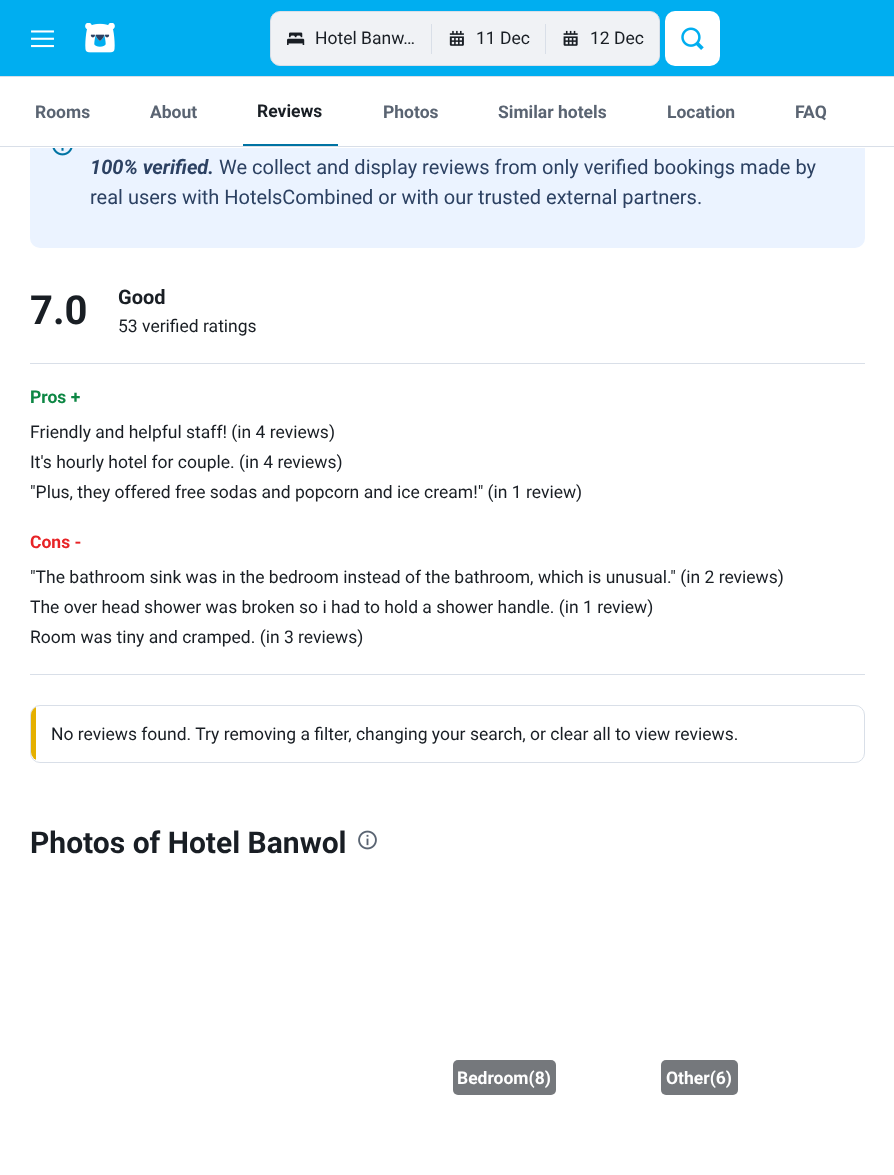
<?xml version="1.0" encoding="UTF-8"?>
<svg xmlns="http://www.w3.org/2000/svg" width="894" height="1175">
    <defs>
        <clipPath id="clip1"><rect x="31" y="706" width="833" height="55" rx="9"/></clipPath>
    </defs>
    <rect width="100%" height="100%" fill="#FFFFFF"/>
    <rect x="0" y="76" width="894" height="1" fill="#D9DFE8"/>
    <rect x="0" y="0" width="894" height="76" fill="#00AEF0"/>
    <image x="31" y="30" width="23" height="18" href="img_01.png"/>
    <image x="85" y="23" width="30" height="30" href="img_02.png"/>
    <rect x="270.5" y="11.5" width="389" height="54" rx="9.5" fill="#F0F2F5" stroke="#D9DFE8"/>
    <image x="287" y="32" width="18" height="13" href="img_03.png"/>
    <text x="315" y="44" font-family="Roboto" font-size="17.5" fill="#191E24">Hotel Banw…</text>
    <rect x="431" y="13" width="228" height="52" rx="10" fill="#F0F2F5"/>
    <rect x="431" y="24" width="1" height="30" fill="#D9DFE8"/>
    <image x="449" y="30" width="15" height="16" href="img_04.png"/>
    <text x="476" y="44" font-family="Roboto" font-size="17.5" fill="#191E24">11 Dec</text>
    <rect x="545" y="24" width="1" height="30" fill="#D9DFE8"/>
    <image x="563" y="30" width="15" height="16" href="img_05.png"/>
    <text x="590" y="44" font-family="Roboto" font-size="17.5" fill="#191E24">12 Dec</text>
    <rect x="665" y="11" width="55" height="55" rx="10" fill="#FFFFFF"/>
    <image x="681" y="27" width="23" height="23" href="img_06.png"/>
    <rect x="30" y="118" width="835" height="130" rx="10" fill="#EBF3FF"/>
    <rect x="30" y="118" width="835" height="30" fill="#FFFFFF"/>
    <rect x="0" y="146" width="894" height="1" fill="#D9DFE8"/>
    <text x="35" y="118" font-family="Roboto" font-size="17.5" font-weight="700" fill="#5A6472">Rooms</text>
    <text x="150" y="118" font-family="Roboto" font-size="17.5" font-weight="700" fill="#5A6472">About</text>
    <rect x="243" y="144" width="95" height="2" fill="#0073A3"/>
    <text x="257" y="117" font-family="Roboto" font-size="17.5" font-weight="700" fill="#191E24">Reviews</text>
    <text x="383" y="118" font-family="Roboto" font-size="17.5" font-weight="700" fill="#5A6472">Photos</text>
    <text x="498" y="118" font-family="Roboto" font-size="17.5" font-weight="700" fill="#5A6472">Similar hotels</text>
    <text x="667" y="118" font-family="Roboto" font-size="17.5" font-weight="700" fill="#5A6472">Location</text>
    <text x="795" y="118" font-family="Roboto" font-size="17.5" font-weight="700" fill="#5A6472">FAQ</text>
    <image x="52" y="148" width="21" height="8" href="img_07.png"/>
    <text x="90" y="174" font-family="Roboto" font-size="20" font-weight="700" font-style="italic" fill="#2C4162">100% verified.</text>
    <text x="219" y="174" font-family="Roboto" font-size="20" fill="#2C4162">We collect and display reviews from only verified bookings made by</text>
    <text x="90" y="204" font-family="Roboto" font-size="20" fill="#2C4162">real users with HotelsCombined or with our trusted external partners.</text>
    <text x="30" y="324" font-family="Roboto" font-size="40" font-weight="700" fill="#191E24">7.0</text>
    <text x="118" y="304" font-family="Roboto" font-size="20" font-weight="700" fill="#191E24">Good</text>
    <text x="118" y="332" font-family="Roboto" font-size="17.5" fill="#191E24">53 verified ratings</text>
    <rect x="30" y="363" width="835" height="1" fill="#D9DFE8"/>
    <text x="30" y="403" font-family="Roboto" font-size="17.5" font-weight="700" fill="#0D8744">Pros +</text>
    <text font-family="Roboto" font-size="17.5" fill="#191E24">
        <tspan x="30" y="438">Friendly and helpful staff! (in 4 reviews)</tspan>
        <tspan x="30" y="468">It's hourly hotel for couple. (in 4 reviews)</tspan>
        <tspan x="30" y="498">"Plus, they offered free sodas and popcorn and ice cream!" (in 1 review)</tspan>
    </text>
    <text x="30" y="548" font-family="Roboto" font-size="17.5" font-weight="700" fill="#E72326">Cons -</text>
    <text font-family="Roboto" font-size="17.5" fill="#191E24">
        <tspan x="30" y="583">"The bathroom sink was in the bedroom instead of the bathroom, which is unusual." (in 2 reviews)</tspan>
        <tspan x="30" y="613">The over head shower was broken so i had to hold a shower handle. (in 1 review)</tspan>
        <tspan x="30" y="643">Room was tiny and cramped. (in 3 reviews)</tspan>
    </text>
    <rect x="30" y="674" width="835" height="1" fill="#D9DFE8"/>
    <rect x="30.5" y="705.5" width="834" height="57" rx="9.5" fill="none" stroke="#D9DFE8"/>
    <g clip-path="url(#clip1)">
        <rect x="31" y="706" width="5" height="55" fill="#E5B000"/>
    </g>
    <text x="51" y="740" font-family="Roboto" font-size="17.5" fill="#191E24">No reviews found. Try removing a filter, changing your search, or clear all to view reviews.</text>
    <text x="30" y="853" font-family="Roboto" font-size="30" font-weight="700" fill="#191E24">Photos of Hotel Banwol</text>
    <image x="358" y="830" width="19" height="20" href="img_08.png"/>
    <rect x="453" y="1060" width="103" height="35" rx="5" fill="#75787C"/>
    <text x="457" y="1084" font-family="Roboto" font-size="17.5" font-weight="700" fill="#FFFFFF">Bedroom(8)</text>
    <rect x="661" y="1060" width="77" height="35" rx="5" fill="#75787C"/>
    <text x="666" y="1084" font-family="Roboto" font-size="17.5" font-weight="700" fill="#FFFFFF">Other(6)</text>
</svg>
